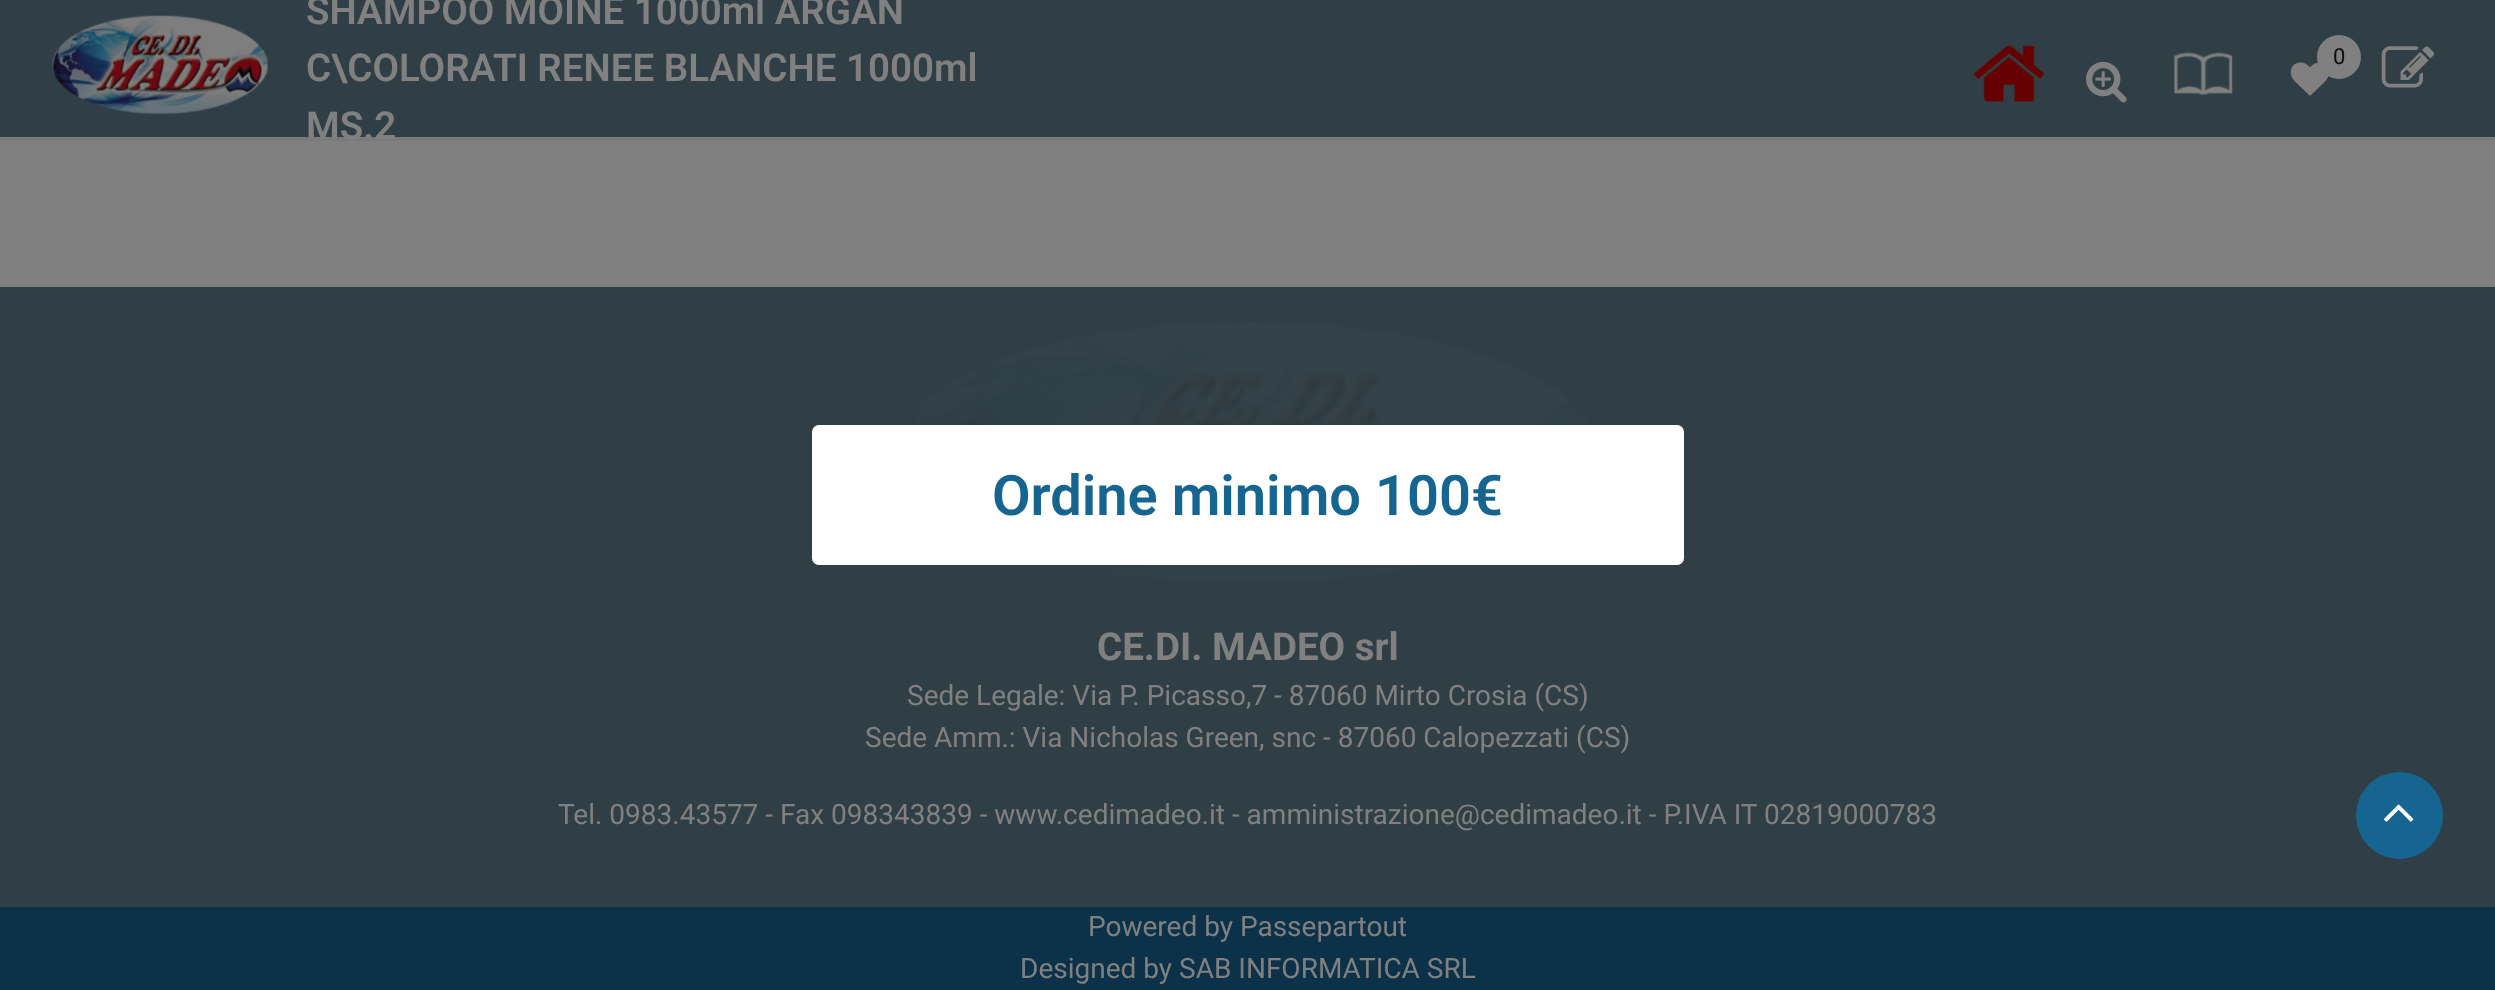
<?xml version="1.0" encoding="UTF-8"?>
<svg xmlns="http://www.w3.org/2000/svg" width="2495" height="990">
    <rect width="100%" height="100%" fill="#808080"/>
    <rect x="0" y="0" width="2495" height="137" fill="#303F46"/>
    <rect x="0" y="137" width="2495" height="4" fill="#7A7A7A"/>
    <image x="52" y="15" width="216" height="99" href="img_01.png"/>
    <text font-family="Roboto" font-size="38.5" font-weight="600" fill="#808080">
        <tspan x="306" y="24">SHAMPOO MOINE 1000ml ARGAN</tspan>
        <tspan x="306" y="81">C\COLORATI RENEE BLANCHE 1000ml</tspan>
        <tspan x="306" y="139">MS.2</tspan>
    </text>
    <image x="1973" y="45" width="72" height="57" href="img_02.png"/>
    <image x="2086" y="61" width="41" height="42" href="img_03.png"/>
    <image x="2174" y="51" width="59" height="44" href="img_04.png"/>
    <image x="2290" y="62" width="39" height="34" href="img_05.png"/>
    <circle cx="2339" cy="57" r="22" fill="#808080"/>
    <text x="2333" y="64" font-family="Roboto" font-size="22" fill="#0D0D0D">0</text>
    <image x="2381" y="46" width="53" height="42" href="img_06.png"/>
    <rect x="0" y="287" width="2495" height="620" fill="#303F46"/>
    <image x="906" y="322" width="684" height="260" href="img_07.png"/>
    <rect x="812" y="425" width="872" height="140" rx="7" fill="#FFFFFF"/>
    <text x="992" y="515" font-family="Roboto" font-size="56" font-weight="600" fill="#166490">Ordine minimo 100€</text>
    <text x="1097" y="660" font-family="Roboto" font-size="38.5" font-weight="700" fill="#808080">CE.DI. MADEO srl</text>
    <text x="907" y="705" font-family="Roboto" font-size="28" fill="#808080">Sede Legale: Via P. Picasso,7 - 87060 Mirto Crosia (CS)</text>
    <text x="865" y="747" font-family="Roboto" font-size="28" fill="#808080">Sede Amm.: Via Nicholas Green, snc - 87060 Calopezzati (CS)</text>
    <text x="558" y="824" font-family="Roboto" font-size="28" fill="#808080">Tel. 0983.43577 - Fax 098343839 - www.cedimadeo.it - amministrazione@cedimadeo.it - P.IVA IT 02819000783</text>
    <circle cx="2399.5" cy="815.5" r="43.5" fill="#166490"/>
    <image x="2384" y="804" width="30" height="18" href="img_08.png"/>
    <rect x="0" y="907" width="2495" height="83" fill="#0B3248"/>
    <text x="1088" y="936" font-family="Roboto" font-size="28" fill="#808080">Powered by Passepartout</text>
    <text x="1020" y="978" font-family="Roboto" font-size="28" fill="#808080">Designed by SAB INFORMATICA SRL</text>
</svg>
